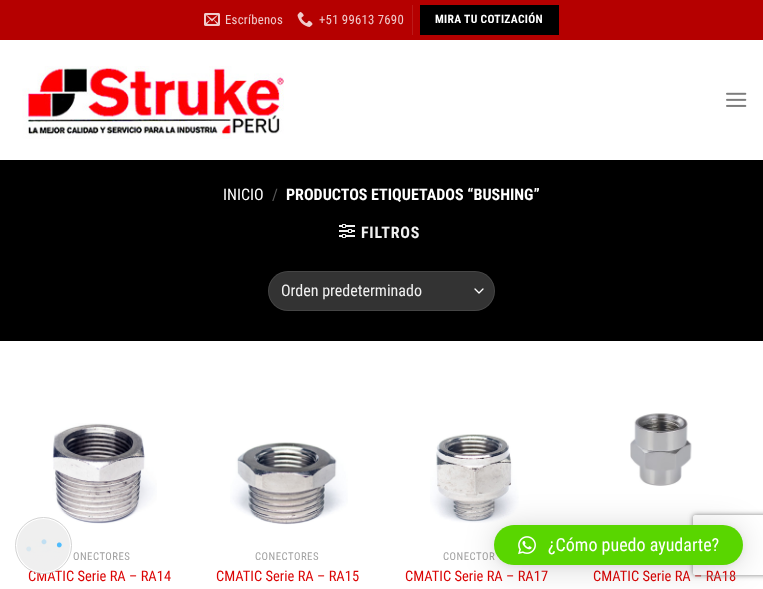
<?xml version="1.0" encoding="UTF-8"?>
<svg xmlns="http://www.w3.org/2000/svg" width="763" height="589">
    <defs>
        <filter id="blur1" x="-50%" y="-200%" width="200%" height="500%"><feGaussianBlur stdDeviation="16"/></filter>
        <filter id="blur2" x="-50%" y="-200%" width="200%" height="500%"><feGaussianBlur stdDeviation="3"/></filter>
        <clipPath id="clip1"><path d="M 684 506 H 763 V 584 H 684 Z M 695 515 H 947 C 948 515 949 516 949 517 V 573 C 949 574 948 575 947 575 H 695 C 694 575 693 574 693 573 V 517 C 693 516 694 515 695 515 Z" clip-rule="evenodd"/></clipPath>
        <filter id="blur3" x="-50%" y="-200%" width="200%" height="500%"><feGaussianBlur stdDeviation="2.5"/></filter>
    </defs>
    <rect width="100%" height="100%" fill="#FFFFFF"/>
    <rect x="0" y="0" width="763" height="40" fill="#B50000"/>
    <image x="204" y="13" width="16" height="13" href="img_01.png"/>
    <text x="225" y="24" font-family="Roboto Condensed" font-size="12.75" letter-spacing="0.25" fill="#F0CCCC">Escríbenos</text>
    <image x="297" y="12" width="16" height="15" href="img_02.png"/>
    <text x="319" y="24" font-family="Roboto Condensed" font-size="12.75" letter-spacing="0.25" fill="#F0CCCC">+51 99613 7690</text>
    <rect x="412" y="5" width="1" height="30" fill="#BC1A1A"/>
    <rect x="420" y="5" width="139" height="30" fill="#000000"/>
    <text x="435" y="23" font-family="Roboto Condensed" font-size="11.6" font-weight="700" letter-spacing="0.3" fill="#FFFFFF">MIRA TU COTIZACIÓN</text>
    <image x="22" y="66" width="262" height="73" href="img_03.png"/>
    <image x="726" y="92" width="21" height="15" href="img_04.png"/>
    <rect x="0" y="160" width="763" height="181" fill="#000000"/>
    <text x="223" y="200" font-family="Roboto Condensed" font-size="16" fill="#FFFFFF">INICIO</text>
    <text x="272" y="200" font-family="Roboto Condensed" font-size="16" fill="#595959">/</text>
    <text x="286" y="200" font-family="Roboto Condensed" font-size="16" font-weight="700" fill="#FFFFFF">PRODUCTOS ETIQUETADOS “BUSHING”</text>
    <image x="339" y="224" width="16" height="14" href="img_05.png"/>
    <text x="361" y="238" font-family="Roboto Condensed" font-size="16" font-weight="700" letter-spacing="0.75" fill="#F1F1F1">FILTROS</text>
    <rect x="268" y="271" width="227" height="40" rx="20" fill="#333333"/>
    <path d="M 475 289 L 479 293 L 483 289" fill="none" stroke="#FFFFFF" stroke-width="1.3" stroke-linecap="round" stroke-linejoin="round"/>
    <rect x="268.5" y="271.5" width="226" height="39" rx="19.5" fill="none" stroke="#FFFFFF" stroke-opacity="0.09"/>
    <text x="281" y="296" font-family="Roboto Condensed" font-size="16" fill="#F1F1F1">Orden predeterminado</text>
    <image x="52" y="423" width="105" height="101" href="img_06.png"/>
    <text x="73" y="560" font-family="Roboto Condensed" font-size="10.75" letter-spacing="0.5" fill="#A0A0A0">ONECTORES</text>
    <text x="28" y="581" font-family="Roboto Condensed" font-size="14.5" fill="#DB0404">CMATIC Serie RA – RA14</text>
    <image x="230" y="442" width="118" height="83" href="img_07.png"/>
    <text x="255" y="560" font-family="Roboto Condensed" font-size="10.75" letter-spacing="0.5" fill="#A0A0A0">CONECTORES</text>
    <text x="216" y="581" font-family="Roboto Condensed" font-size="14.5" fill="#DB0404">CMATIC Serie RA – RA15</text>
    <image x="430" y="434" width="89" height="89" href="img_08.png"/>
    <text x="443" y="560" font-family="Roboto Condensed" font-size="10.75" letter-spacing="0.5" fill="#A0A0A0">CONECTOR</text>
    <text x="405" y="581" font-family="Roboto Condensed" font-size="14.5" fill="#DB0404">CMATIC Serie RA – RA17</text>
    <image x="630" y="413" width="62" height="73" href="img_09.png"/>
    <text x="593" y="581" font-family="Roboto Condensed" font-size="14.5" fill="#DB0404">CMATIC Serie RA – RA18</text>
    <circle cx="43.5" cy="545.5" r="28" fill="#FFFFFF" stroke="#D3D3D3"/>
    <image x="17" y="519" width="53" height="53" href="img_10.png"/>
    <rect x="494" y="527" width="249" height="40" rx="20" fill="#000000" fill-opacity="0.16" filter="url(#blur1)"/>
    <rect x="494" y="526" width="249" height="40" rx="20" fill="#000000" fill-opacity="0.06" filter="url(#blur2)"/>
    <g clip-path="url(#clip1)">
        <rect x="693" y="515" width="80" height="60" rx="2" fill="#808080" filter="url(#blur3)"/>
    </g>
    <rect x="494" y="525" width="249" height="40" rx="20" fill="#59D600"/>
    <image x="518" y="536" width="18" height="19" href="img_11.png"/>
    <text x="548" y="551" font-family="Roboto Condensed" font-size="18" fill="#FFFFFF">¿Cómo puedo ayudarte?</text>
</svg>
